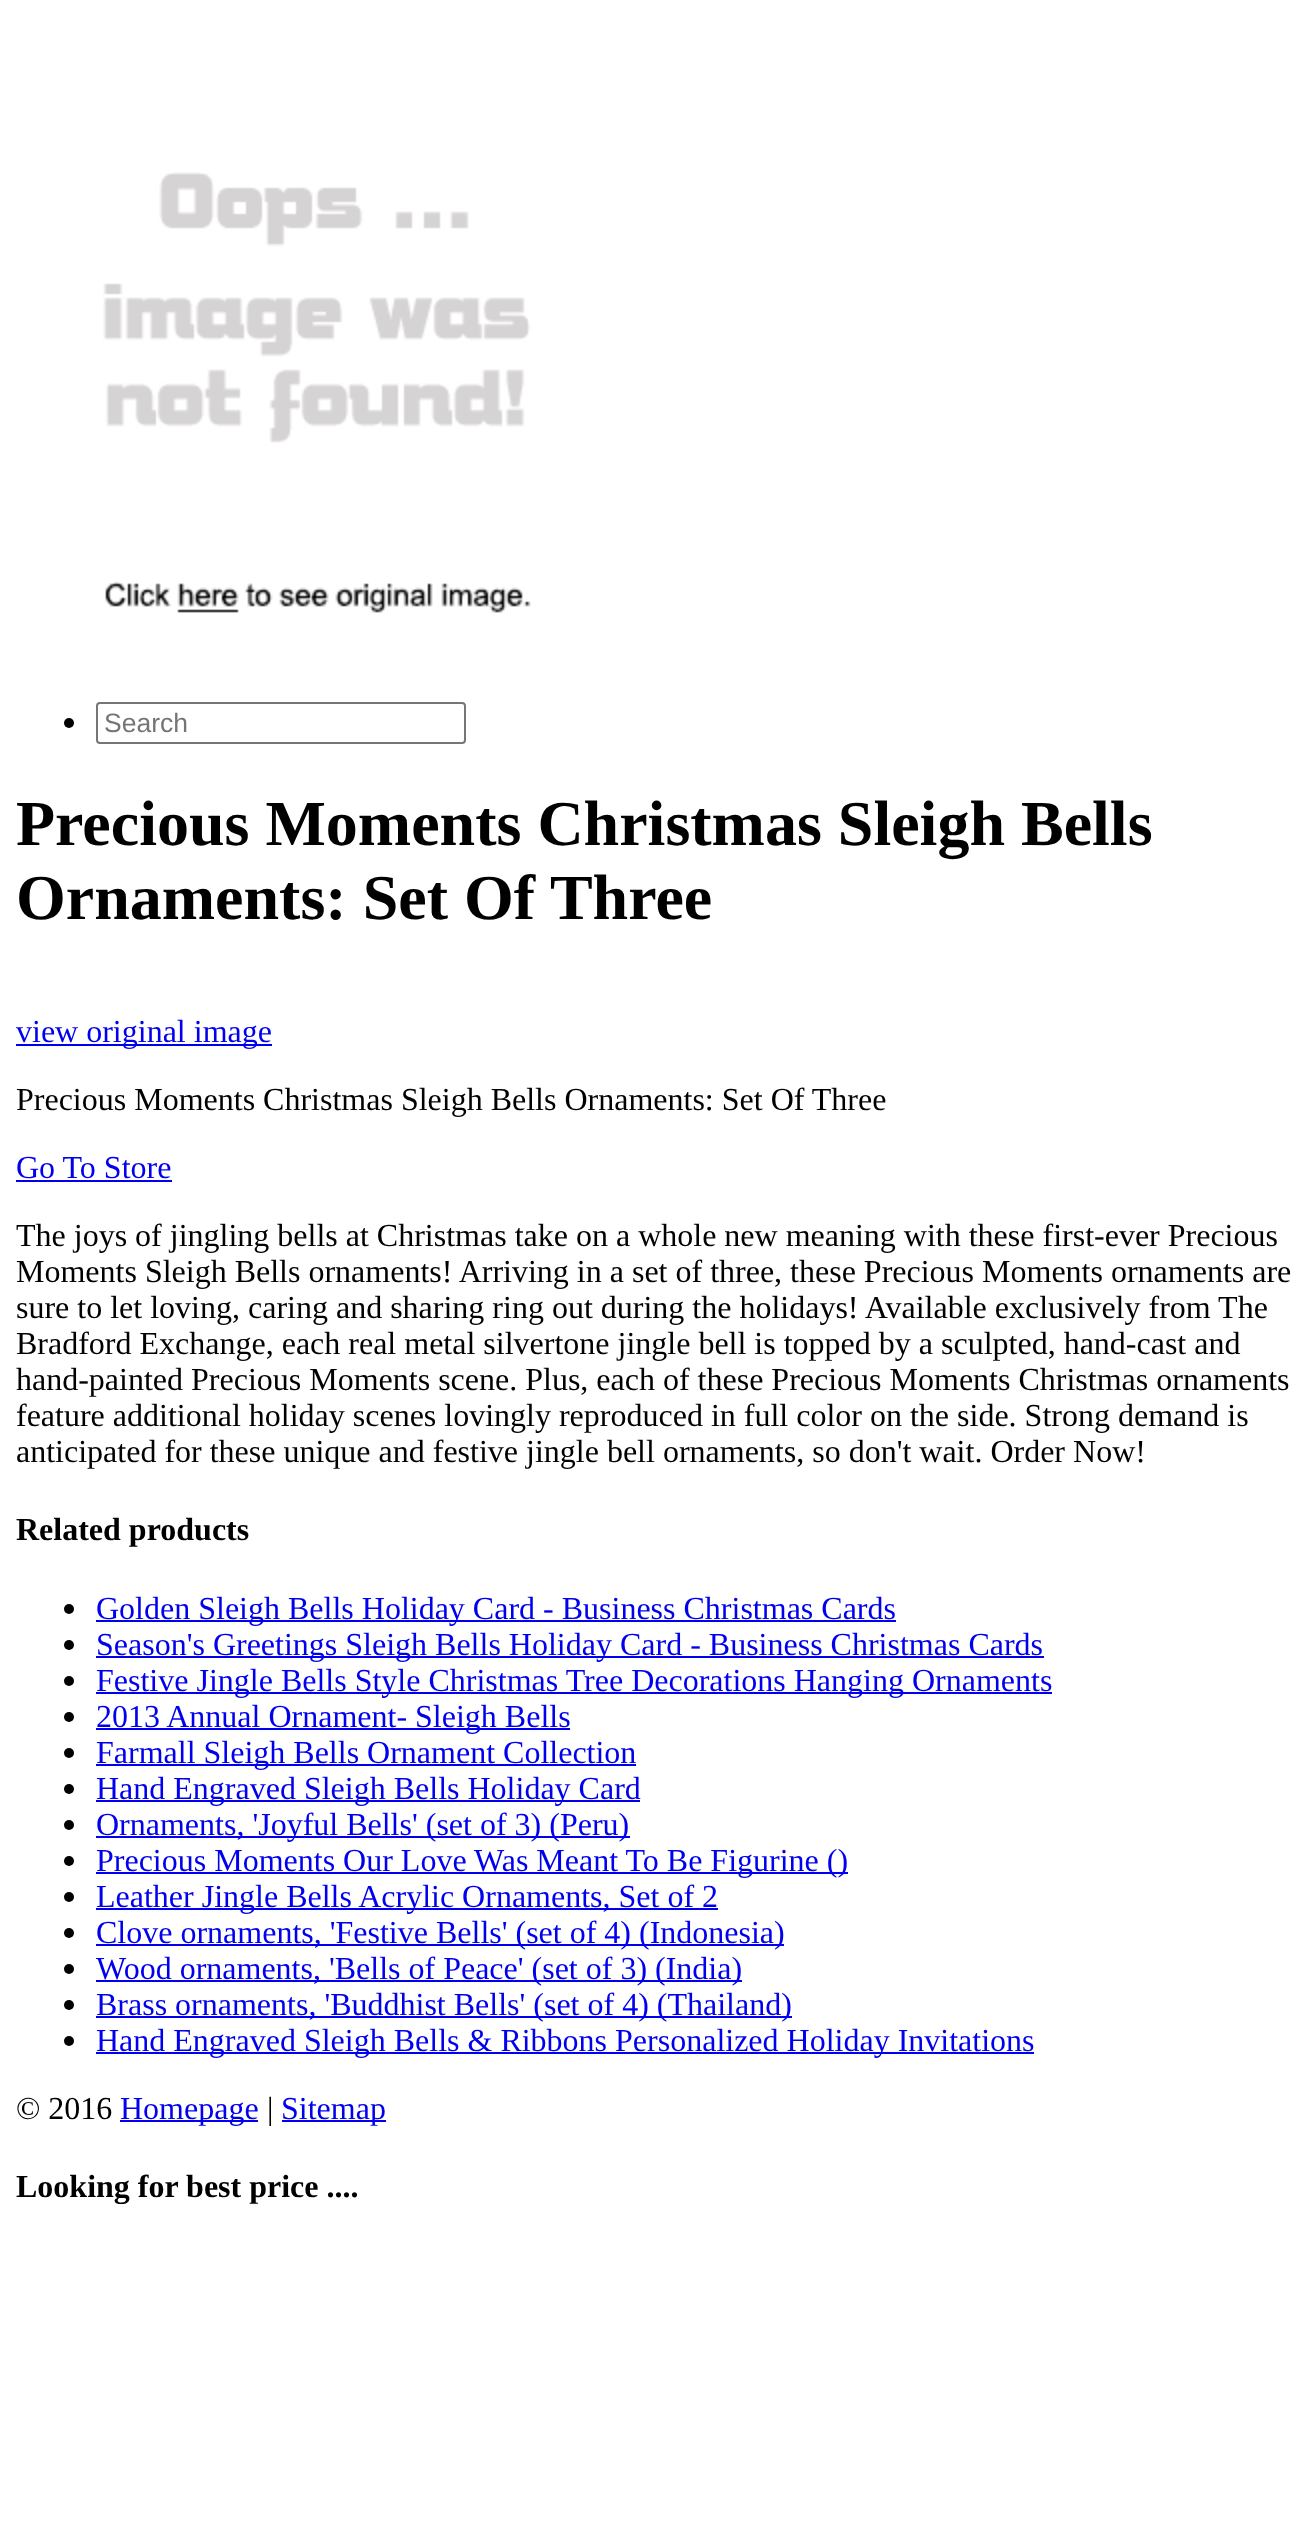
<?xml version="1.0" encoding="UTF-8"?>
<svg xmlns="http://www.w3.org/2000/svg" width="1307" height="2543">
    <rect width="100%" height="100%" fill="#FFFFFF"/>
    <image x="103" y="172" width="428" height="441" href="img_01.png"/>
    <circle cx="69" cy="723" r="5" fill="#000000"/>
    <rect x="97" y="703" width="368" height="40" rx="3" fill="none" stroke="#767676" stroke-width="2"/>
    <text x="104" y="732" font-family="Liberation Sans" font-size="26.5" fill="#757575">Search</text>
    <text font-family="Liberation Serif" font-size="64" font-weight="700" fill="#000000">
        <tspan x="16" y="845">Precious Moments Christmas Sleigh Bells</tspan>
        <tspan x="16" y="919">Ornaments: Set Of Three</tspan>
    </text>
    <rect x="16" y="1044" width="256" height="2" fill="#0000EE"/>
    <text x="16" y="1042" font-family="Liberation Serif" font-size="32" fill="#0000EE">view original image</text>
    <text x="16" y="1110" font-family="Liberation Serif" font-size="32" fill="#000000">Precious Moments Christmas Sleigh Bells Ornaments: Set Of Three</text>
    <text x="16" y="1178" font-family="Liberation Serif" font-size="32" fill="#0000EE">Go To Store</text>
    <rect x="16" y="1180" width="156" height="2" fill="#0000EE"/>
    <text font-family="Liberation Serif" font-size="32" fill="#000000">
        <tspan x="16" y="1246">The joys of jingling bells at Christmas take on a whole new meaning with these first-ever Precious</tspan>
        <tspan x="16" y="1282">Moments Sleigh Bells ornaments! Arriving in a set of three, these Precious Moments ornaments are</tspan>
        <tspan x="16" y="1318">sure to let loving, caring and sharing ring out during the holidays! Available exclusively from The</tspan>
        <tspan x="16" y="1354">Bradford Exchange, each real metal silvertone jingle bell is topped by a sculpted, hand-cast and</tspan>
        <tspan x="16" y="1390">hand-painted Precious Moments scene. Plus, each of these Precious Moments Christmas ornaments</tspan>
        <tspan x="16" y="1426">feature additional holiday scenes lovingly reproduced in full color on the side. Strong demand is</tspan>
        <tspan x="16" y="1462">anticipated for these unique and festive jingle bell ornaments, so don't wait. Order Now!</tspan>
    </text>
    <text x="16" y="1540" font-family="Liberation Serif" font-size="32" font-weight="700" fill="#000000">Related products</text>
    <circle cx="69" cy="1609" r="5" fill="#000000"/>
    <rect x="96" y="1620" width="800" height="2" fill="#0000EE"/>
    <text x="96" y="1619" font-family="Liberation Serif" font-size="32" fill="#0000EE">Golden Sleigh Bells Holiday Card - Business Christmas Cards</text>
    <circle cx="69" cy="1645" r="5" fill="#000000"/>
    <rect x="96" y="1656" width="948" height="2" fill="#0000EE"/>
    <text x="96" y="1655" font-family="Liberation Serif" font-size="32" fill="#0000EE">Season's Greetings Sleigh Bells Holiday Card - Business Christmas Cards</text>
    <circle cx="69" cy="1681" r="5" fill="#000000"/>
    <rect x="96" y="1692" width="956" height="2" fill="#0000EE"/>
    <text x="96" y="1691" font-family="Liberation Serif" font-size="32" fill="#0000EE">Festive Jingle Bells Style Christmas Tree Decorations Hanging Ornaments</text>
    <circle cx="69" cy="1717" r="5" fill="#000000"/>
    <rect x="96" y="1728" width="474" height="2" fill="#0000EE"/>
    <text x="96" y="1727" font-family="Liberation Serif" font-size="32" fill="#0000EE">2013 Annual Ornament- Sleigh Bells</text>
    <circle cx="69" cy="1753" r="5" fill="#000000"/>
    <rect x="96" y="1764" width="540" height="2" fill="#0000EE"/>
    <text x="96" y="1763" font-family="Liberation Serif" font-size="32" fill="#0000EE">Farmall Sleigh Bells Ornament Collection</text>
    <circle cx="69" cy="1789" r="5" fill="#000000"/>
    <rect x="96" y="1800" width="544" height="2" fill="#0000EE"/>
    <text x="96" y="1799" font-family="Liberation Serif" font-size="32" fill="#0000EE">Hand Engraved Sleigh Bells Holiday Card</text>
    <circle cx="69" cy="1825" r="5" fill="#000000"/>
    <rect x="96" y="1836" width="534" height="2" fill="#0000EE"/>
    <text x="96" y="1835" font-family="Liberation Serif" font-size="32" fill="#0000EE">Ornaments, 'Joyful Bells' (set of 3) (Peru)</text>
    <circle cx="69" cy="1861" r="5" fill="#000000"/>
    <rect x="96" y="1872" width="752" height="2" fill="#0000EE"/>
    <text x="96" y="1871" font-family="Liberation Serif" font-size="32" fill="#0000EE">Precious Moments Our Love Was Meant To Be Figurine ()</text>
    <circle cx="69" cy="1897" r="5" fill="#000000"/>
    <rect x="96" y="1908" width="622" height="2" fill="#0000EE"/>
    <text x="96" y="1907" font-family="Liberation Serif" font-size="32" fill="#0000EE">Leather Jingle Bells Acrylic Ornaments, Set of 2</text>
    <circle cx="69" cy="1933" r="5" fill="#000000"/>
    <rect x="96" y="1944" width="688" height="2" fill="#0000EE"/>
    <text x="96" y="1943" font-family="Liberation Serif" font-size="32" fill="#0000EE">Clove ornaments, 'Festive Bells' (set of 4) (Indonesia)</text>
    <circle cx="69" cy="1969" r="5" fill="#000000"/>
    <rect x="96" y="1980" width="646" height="2" fill="#0000EE"/>
    <text x="96" y="1979" font-family="Liberation Serif" font-size="32" fill="#0000EE">Wood ornaments, 'Bells of Peace' (set of 3) (India)</text>
    <circle cx="69" cy="2005" r="5" fill="#000000"/>
    <rect x="96" y="2016" width="696" height="2" fill="#0000EE"/>
    <text x="96" y="2015" font-family="Liberation Serif" font-size="32" fill="#0000EE">Brass ornaments, 'Buddhist Bells' (set of 4) (Thailand)</text>
    <circle cx="69" cy="2041" r="5" fill="#000000"/>
    <rect x="96" y="2052" width="938" height="2" fill="#0000EE"/>
    <text x="96" y="2051" font-family="Liberation Serif" font-size="32" fill="#0000EE">Hand Engraved Sleigh Bells &amp; Ribbons Personalized Holiday Invitations</text>
    <text x="16" y="2119" font-family="Liberation Serif" font-size="32" fill="#000000">© 2016</text>
    <rect x="120" y="2120" width="138" height="2" fill="#0000EE"/>
    <text x="120" y="2119" font-family="Liberation Serif" font-size="32" fill="#0000EE">Homepage</text>
    <text x="267" y="2119" font-family="Liberation Serif" font-size="32" fill="#000000">|</text>
    <rect x="282" y="2120" width="104" height="2" fill="#0000EE"/>
    <text x="281" y="2119" font-family="Liberation Serif" font-size="32" fill="#0000EE">Sitemap</text>
    <text x="16" y="2197" font-family="Liberation Serif" font-size="32" font-weight="700" fill="#000000">Looking for best price ....</text>
</svg>
